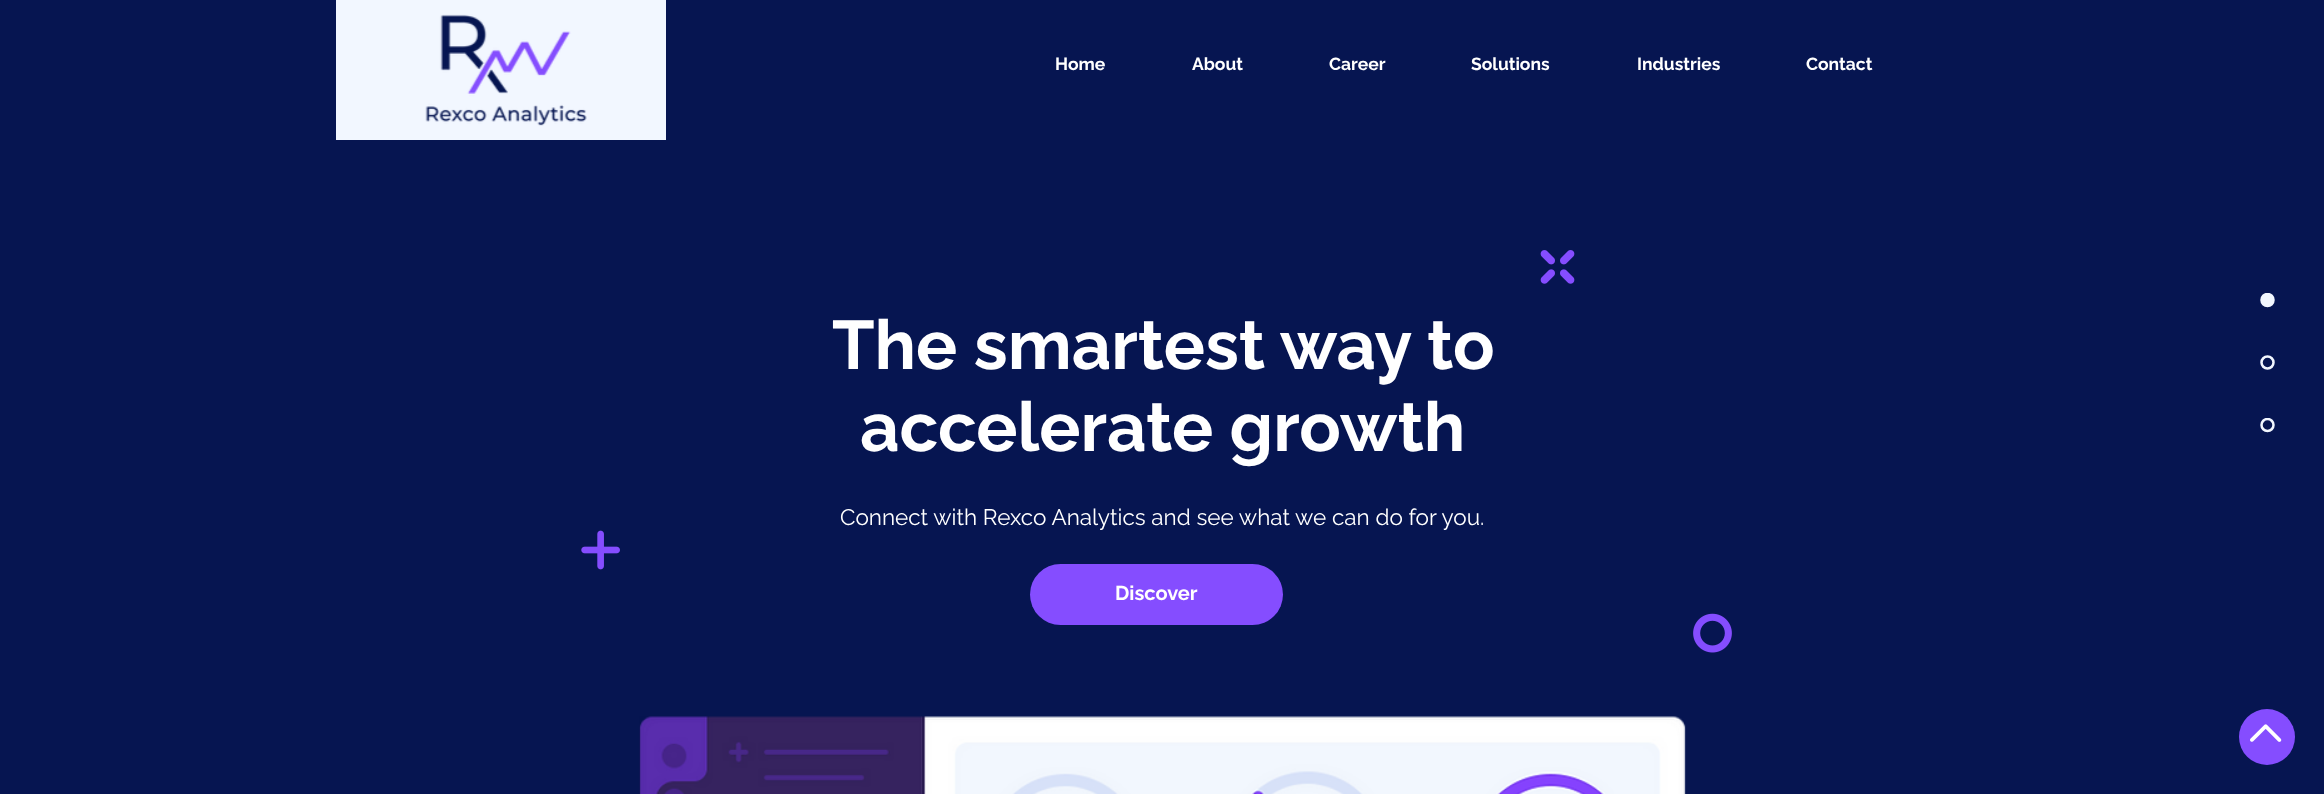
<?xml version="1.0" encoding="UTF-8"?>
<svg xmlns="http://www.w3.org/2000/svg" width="2324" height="794">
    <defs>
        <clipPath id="clip1"><rect x="2260" y="293" width="15" height="15"/></clipPath>
        <clipPath id="clip2"><rect x="2260" y="418" width="15" height="15"/></clipPath>
    </defs>
    <rect width="100%" height="100%" fill="#061551"/>
    <rect x="336" y="0" width="330" height="140" fill="#F2F7FF"/>
    <image x="425" y="14" width="162" height="112" href="img_01.png"/>
    <text x="1055" y="70" font-family="Raleway" font-size="17.5" font-weight="700" fill="#FFFFFF">Home</text>
    <text x="1192" y="70" font-family="Raleway" font-size="17.5" font-weight="700" fill="#FFFFFF">About</text>
    <text x="1329" y="70" font-family="Raleway" font-size="17.5" font-weight="700" fill="#FFFFFF">Career</text>
    <text x="1471" y="70" font-family="Raleway" font-size="17.5" font-weight="700" fill="#FFFFFF">Solutions</text>
    <text x="1637" y="70" font-family="Raleway" font-size="17.5" font-weight="700" fill="#FFFFFF">Industries</text>
    <text x="1806" y="70" font-family="Raleway" font-size="17.5" font-weight="700" fill="#FFFFFF">Contact</text>
    <image x="1540" y="250" width="35" height="34" href="img_02.png"/>
    <text x="832" y="369" font-family="Raleway" font-size="68.75" font-weight="700" fill="#FFFFFF">The smartest way to</text>
    <text x="860" y="451" font-family="Raleway" font-size="68.75" font-weight="700" fill="#FFFFFF">accelerate growth</text>
    <text x="840" y="525" font-family="Raleway" font-size="22.5" fill="#FFFFFF">Connect with Rexco Analytics and see what we can do for you.</text>
    <image x="581" y="530" width="39" height="40" href="img_03.png"/>
    <rect x="1030" y="564" width="253" height="61" rx="30.5" fill="#854DFF"/>
    <text x="1115" y="600" font-family="Raleway" font-size="20" font-weight="700" fill="#FFFFFF">Discover</text>
    <image x="1693" y="613" width="39" height="40" href="img_04.png"/>
    <image x="639" y="716" width="1047" height="78" href="img_05.png"/>
    <circle cx="2267.5" cy="300" r="6" fill="#F2F7FF"/>
    <g clip-path="url(#clip1)">
        <circle cx="2267.5" cy="300" r="6" fill="none" stroke="#F2F7FF" stroke-width="2.5"/>
    </g>
    <circle cx="2267.5" cy="362.5" r="6" fill="none" stroke="#F2F7FF" stroke-width="2.5"/>
    <g clip-path="url(#clip2)">
        <circle cx="2267.5" cy="425" r="6" fill="none" stroke="#F2F7FF" stroke-width="2.5"/>
    </g>
    <circle cx="2267" cy="737" r="28" fill="#854DFF"/>
    <image x="2250" y="724" width="32" height="18" href="img_06.png"/>
</svg>
